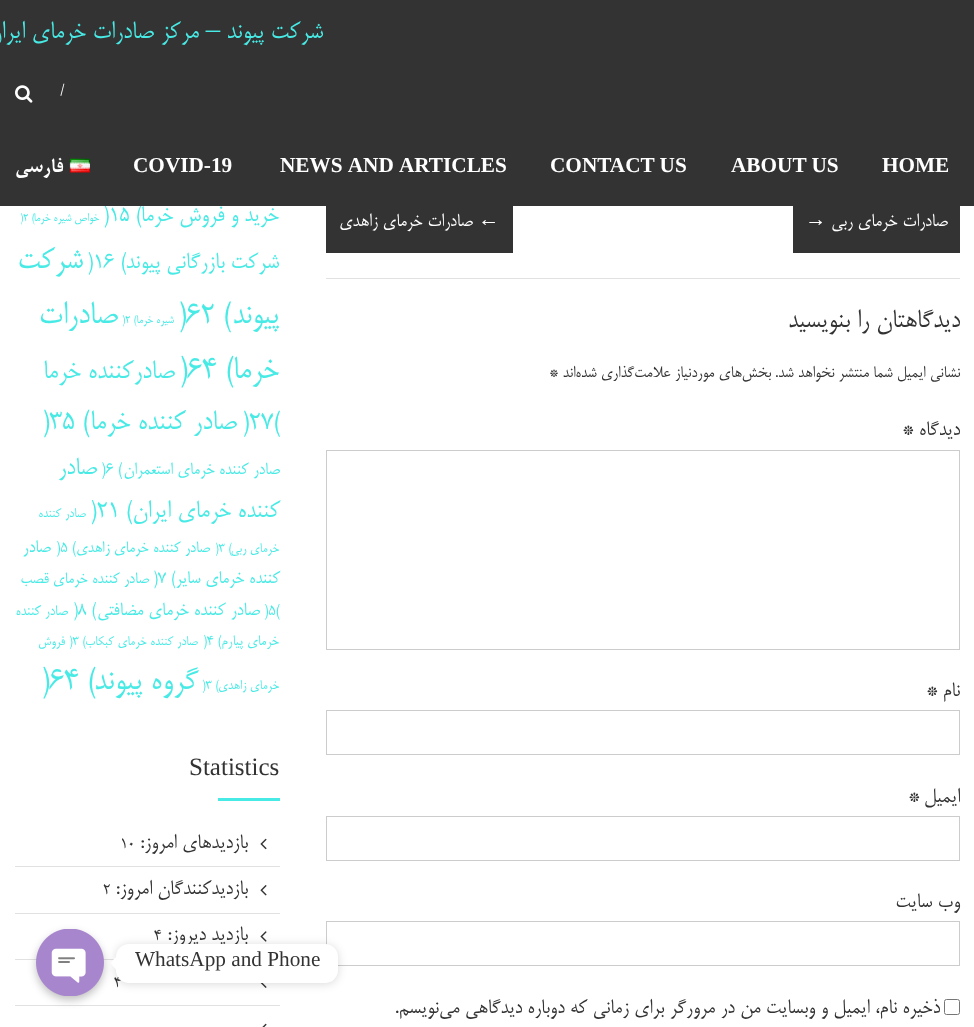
<?xml version="1.0" encoding="UTF-8"?>
<svg xmlns="http://www.w3.org/2000/svg" width="974" height="1027">
    <defs>
        <filter id="blur1" x="-50%" y="-200%" width="200%" height="500%"><feGaussianBlur stdDeviation="5"/></filter>
        <filter id="blur2" x="-50%" y="-200%" width="200%" height="500%"><feGaussianBlur stdDeviation="4"/></filter>
    </defs>
    <rect width="100%" height="100%" fill="#FFFFFF"/>
    <text x="279" y="221" font-family="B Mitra" font-size="26" direction="rtl" fill="#48EAE5">خرید و فروش خرما</text>
    <text x="103" y="221" font-family="B Mitra" font-size="26" fill="#48EAE5">)15 (</text>
    <rect x="0" y="0" width="974" height="206" fill="#333333"/>
    <text x="323" y="38" font-family="B Mitra" font-size="28.75" direction="rtl" fill="#48EAE5">شرکت پیوند</text>
    <text x="220" y="38" font-family="Liberation Serif" font-size="28.75" direction="rtl" fill="#48EAE5">–</text>
    <text x="199" y="38" font-family="B Mitra" font-size="28.75" direction="rtl" fill="#48EAE5">مرکز صادرات خرمای ایران</text>
    <text x="60" y="95" font-family="B Mitra" font-size="18.75" fill="#FFFFFF">/</text>
    <image x="15" y="85" width="18" height="18" href="img_01.png"/>
    <text x="882" y="172" font-family="Liberation Serif" font-size="21.25" font-weight="700" fill="#FFFFFF">HOME</text>
    <text x="731" y="172" font-family="Liberation Serif" font-size="21.25" font-weight="700" fill="#FFFFFF">ABOUT US</text>
    <text x="550" y="172" font-family="Liberation Serif" font-size="21.25" font-weight="700" fill="#FFFFFF">CONTACT US</text>
    <text x="280" y="172" word-spacing="1" font-family="Liberation Serif" font-size="21.25" font-weight="700" fill="#FFFFFF">NEWS AND ARTICLES</text>
    <text x="133" y="172" font-family="Liberation Serif" font-size="21.25" font-weight="700" fill="#FFFFFF">COVID-19</text>
    <image x="69" y="158" width="21" height="15" href="img_02.png"/>
    <text x="63" y="172" font-family="B Mitra" font-size="21.25" font-weight="700" direction="rtl" fill="#FFFFFF">فارسی</text>
    <rect x="326" y="278" width="634" height="1" fill="#E1E1E1"/>
    <rect x="793" y="206" width="167" height="47" fill="#333333"/>
    <text x="948" y="226" font-family="B Mitra" font-size="21.25" direction="rtl" fill="#FFFFFF">صادرات خرمای ربی</text>
    <text x="805" y="226" font-family="Liberation Serif" font-size="21.25" fill="#FFFFFF">→</text>
    <rect x="326" y="206" width="187" height="47" fill="#333333"/>
    <text x="478" y="226" font-family="Liberation Serif" font-size="21.25" fill="#FFFFFF">←</text>
    <text x="473" y="226" font-family="B Mitra" font-size="21.25" direction="rtl" fill="#FFFFFF">صادرات خرمای زاهدی</text>
    <text x="960" y="327" font-family="B Mitra" font-size="30" direction="rtl" fill="#333333">دیدگاهتان را بنویسید</text>
    <text x="960" y="377" font-family="B Mitra" font-size="18.75" direction="rtl" fill="#333333">نشانی ایمیل شما منتشر نخواهد شد.</text>
    <text x="771" y="377" font-family="B Mitra" font-size="18.75" direction="rtl" fill="#333333">بخش‌های موردنیاز علامت‌گذاری شده‌اند</text>
    <text x="549" y="377" font-family="B Mitra" font-size="18.75" fill="#333333">*</text>
    <text x="960" y="435" font-family="B Mitra" font-size="23.75" direction="rtl" fill="#333333">دیدگاه</text>
    <text x="902" y="435" font-family="B Mitra" font-size="23.75" fill="#333333">*</text>
    <rect x="326.5" y="450.5" width="633" height="199" fill="none" stroke="#CCCCCC"/>
    <text x="960" y="696" font-family="B Mitra" font-size="23.75" direction="rtl" fill="#333333">نام</text>
    <text x="926" y="696" font-family="B Mitra" font-size="23.75" fill="#333333">*</text>
    <rect x="326.5" y="710.5" width="633" height="44" fill="none" stroke="#CCCCCC"/>
    <text x="960" y="802" font-family="B Mitra" font-size="23.75" direction="rtl" fill="#333333">ایمیل</text>
    <text x="908" y="802" font-family="B Mitra" font-size="23.75" fill="#333333">*</text>
    <rect x="326.5" y="816.5" width="633" height="44" fill="none" stroke="#CCCCCC"/>
    <text x="960" y="907" font-family="B Mitra" font-size="23.75" direction="rtl" fill="#333333">وب‌ سایت</text>
    <rect x="326.5" y="921.5" width="633" height="44" fill="none" stroke="#CCCCCC"/>
    <rect x="944.5" y="999.5" width="15" height="15" rx="2" fill="none" stroke="#767676"/>
    <text x="940" y="1013" font-family="B Mitra" font-size="23.75" direction="rtl" fill="#333333">ذخیره نام، ایمیل و وبسایت من در مرورگر برای زمانی که دوباره دیدگاهی می‌نویسم.</text>
    <text x="99" y="221" font-family="B Mitra" font-size="13.5" direction="rtl" fill="#48EAE5">خواص شیره خرما</text>
    <text x="20" y="221" font-family="B Mitra" font-size="13.5" fill="#48EAE5">)2 (</text>
    <text x="279" y="268" font-family="B Mitra" font-size="26.5" direction="rtl" fill="#48EAE5">شرکت بازرگانی پیوند</text>
    <text x="87" y="268" font-family="B Mitra" font-size="26.5" fill="#48EAE5">)16 (</text>
    <text x="83" y="268" font-family="B Mitra" font-size="36" direction="rtl" fill="#48EAE5">شرکت</text>
    <text x="279" y="323" font-family="B Mitra" font-size="36" direction="rtl" fill="#48EAE5">پیوند</text>
    <text x="178" y="323" font-family="B Mitra" font-size="36" fill="#48EAE5">)62 (</text>
    <text x="174" y="323" font-family="B Mitra" font-size="13.5" direction="rtl" fill="#48EAE5">شیره خرما</text>
    <text x="122" y="323" font-family="B Mitra" font-size="13.5" fill="#48EAE5">)2 (</text>
    <text x="118" y="323" font-family="B Mitra" font-size="37" direction="rtl" fill="#48EAE5">صادرات</text>
    <text x="279" y="378" font-family="B Mitra" font-size="37" direction="rtl" fill="#48EAE5">خرما</text>
    <text x="179" y="378" font-family="B Mitra" font-size="37" fill="#48EAE5">)64 (</text>
    <text x="175" y="378" font-family="B Mitra" font-size="30.5" direction="rtl" fill="#48EAE5">صادرکننده خرما</text>
    <text x="242" y="429" font-family="B Mitra" font-size="30.5" fill="#48EAE5">)27(</text>
    <text x="237" y="429" font-family="B Mitra" font-size="32.25" direction="rtl" fill="#48EAE5">صادر کننده خرما</text>
    <text x="42" y="429" font-family="B Mitra" font-size="32.25" fill="#48EAE5">)35 (</text>
    <text x="280" y="474" font-family="B Mitra" font-size="19.75" direction="rtl" fill="#48EAE5">صادر کننده خرمای استعمران</text>
    <text x="101" y="474" font-family="B Mitra" font-size="19.75" fill="#48EAE5">)6 (</text>
    <text x="97" y="474" font-family="B Mitra" font-size="28.5" direction="rtl" fill="#48EAE5">صادر</text>
    <text x="280" y="517" font-family="B Mitra" font-size="28.5" direction="rtl" fill="#48EAE5">کننده خرمای ایران</text>
    <text x="90" y="517" font-family="B Mitra" font-size="28.5" fill="#48EAE5">)21 (</text>
    <text x="86" y="517" font-family="B Mitra" font-size="15.5" direction="rtl" fill="#48EAE5">صادر کننده</text>
    <text x="279" y="552" font-family="B Mitra" font-size="15.5" direction="rtl" fill="#48EAE5">خرمای ربی</text>
    <text x="215" y="552" font-family="B Mitra" font-size="15.5" fill="#48EAE5">)3 (</text>
    <text x="210" y="552" font-family="B Mitra" font-size="18.5" direction="rtl" fill="#48EAE5">صادر کننده خرمای زاهدی</text>
    <text x="56" y="552" font-family="B Mitra" font-size="18.5" fill="#48EAE5">)5 (</text>
    <text x="51" y="552" font-family="B Mitra" font-size="20.75" direction="rtl" fill="#48EAE5">صادر</text>
    <text x="280" y="583" font-family="B Mitra" font-size="20.75" direction="rtl" fill="#48EAE5">کننده خرمای سایر</text>
    <text x="153" y="583" font-family="B Mitra" font-size="20.75" fill="#48EAE5">)7 (</text>
    <text x="149" y="583" font-family="B Mitra" font-size="18.5" direction="rtl" fill="#48EAE5">صادر کننده خرمای قصب</text>
    <text x="264" y="615" font-family="B Mitra" font-size="18.5" fill="#48EAE5">)5(</text>
    <text x="260" y="615" font-family="B Mitra" font-size="21.5" direction="rtl" fill="#48EAE5">صادر کننده خرمای مضافتی</text>
    <text x="73" y="615" font-family="B Mitra" font-size="21.5" fill="#48EAE5">)8 (</text>
    <text x="68" y="615" font-family="B Mitra" font-size="17" direction="rtl" fill="#48EAE5">صادر کننده</text>
    <text x="279" y="645" font-family="B Mitra" font-size="17" direction="rtl" fill="#48EAE5">خرمای پیارم</text>
    <text x="203" y="645" font-family="B Mitra" font-size="17" fill="#48EAE5">)4 (</text>
    <text x="198" y="645" font-family="B Mitra" font-size="15.5" direction="rtl" fill="#48EAE5">صادر کننده خرمای کبکاب</text>
    <text x="69" y="645" font-family="B Mitra" font-size="15.5" fill="#48EAE5">)3 (</text>
    <text x="65" y="645" font-family="B Mitra" font-size="15.5" direction="rtl" fill="#48EAE5">فروش</text>
    <text x="279" y="689" font-family="B Mitra" font-size="15.5" direction="rtl" fill="#48EAE5">خرمای زاهدی</text>
    <text x="202" y="689" font-family="B Mitra" font-size="15.5" fill="#48EAE5">)3 (</text>
    <text x="198" y="689" font-family="B Mitra" font-size="37" direction="rtl" fill="#48EAE5">گروه پیوند</text>
    <text x="41" y="689" font-family="B Mitra" font-size="37" fill="#48EAE5">)64 (</text>
    <text x="189" y="775" font-family="Liberation Serif" font-size="25" fill="#333333">Statistics</text>
    <rect x="218" y="798" width="62" height="3" fill="#48EAE5"/>
    <rect x="15" y="866" width="265" height="1" fill="#E1E1E1"/>
    <image x="260" y="838" width="7" height="12" href="img_03.png"/>
    <text x="248" y="848" font-family="B Mitra" font-size="23.75" direction="rtl" fill="#333333">بازدیدهای امروز:</text>
    <text x="120" y="848" font-family="B Mitra" font-size="18.75" fill="#333333">10</text>
    <rect x="15" y="913" width="265" height="1" fill="#E1E1E1"/>
    <image x="260" y="885" width="7" height="11" href="img_04.png"/>
    <text x="248" y="894" font-family="B Mitra" font-size="23.75" direction="rtl" fill="#333333">بازدیدکنندگان امروز:</text>
    <text x="103" y="894" font-family="B Mitra" font-size="18.75" fill="#333333">2</text>
    <rect x="15" y="959" width="99" height="1" fill="#E1E1E1"/>
    <image x="260" y="931" width="7" height="11" href="img_05.png"/>
    <text x="248" y="940" font-family="B Mitra" font-size="23.75" direction="rtl" fill="#333333">بازدید دیروز:</text>
    <text x="154" y="940" font-family="B Mitra" font-size="18.75" fill="#333333">4</text>
    <rect x="15" y="1005" width="265" height="1" fill="#E1E1E1"/>
    <image x="260" y="983" width="7" height="5" href="img_06.png"/>
    <text x="114" y="987" font-family="B Mitra" font-size="18.75" fill="#333333">4</text>
    <image x="262" y="1023" width="5" height="4" href="img_07.png"/>
    <rect x="116" y="945" width="222" height="39" rx="13" fill="#000000" fill-opacity="0.15" filter="url(#blur1)"/>
    <rect x="116" y="944" width="222" height="39" rx="13" fill="#FFFFFF"/>
    <text x="135" y="966" font-family="Liberation Serif" font-size="21.25" fill="#333333">WhatsApp and Phone</text>
    <path d="M 116 957 V 969.5 L 110 963 Z" fill="#FFFFFF"/>
    <rect x="36" y="933" width="68" height="67" rx="33.5" fill="#000000" fill-opacity="0.25" filter="url(#blur2)"/>
    <image x="36" y="929" width="68" height="67" href="img_08.png"/>
</svg>
